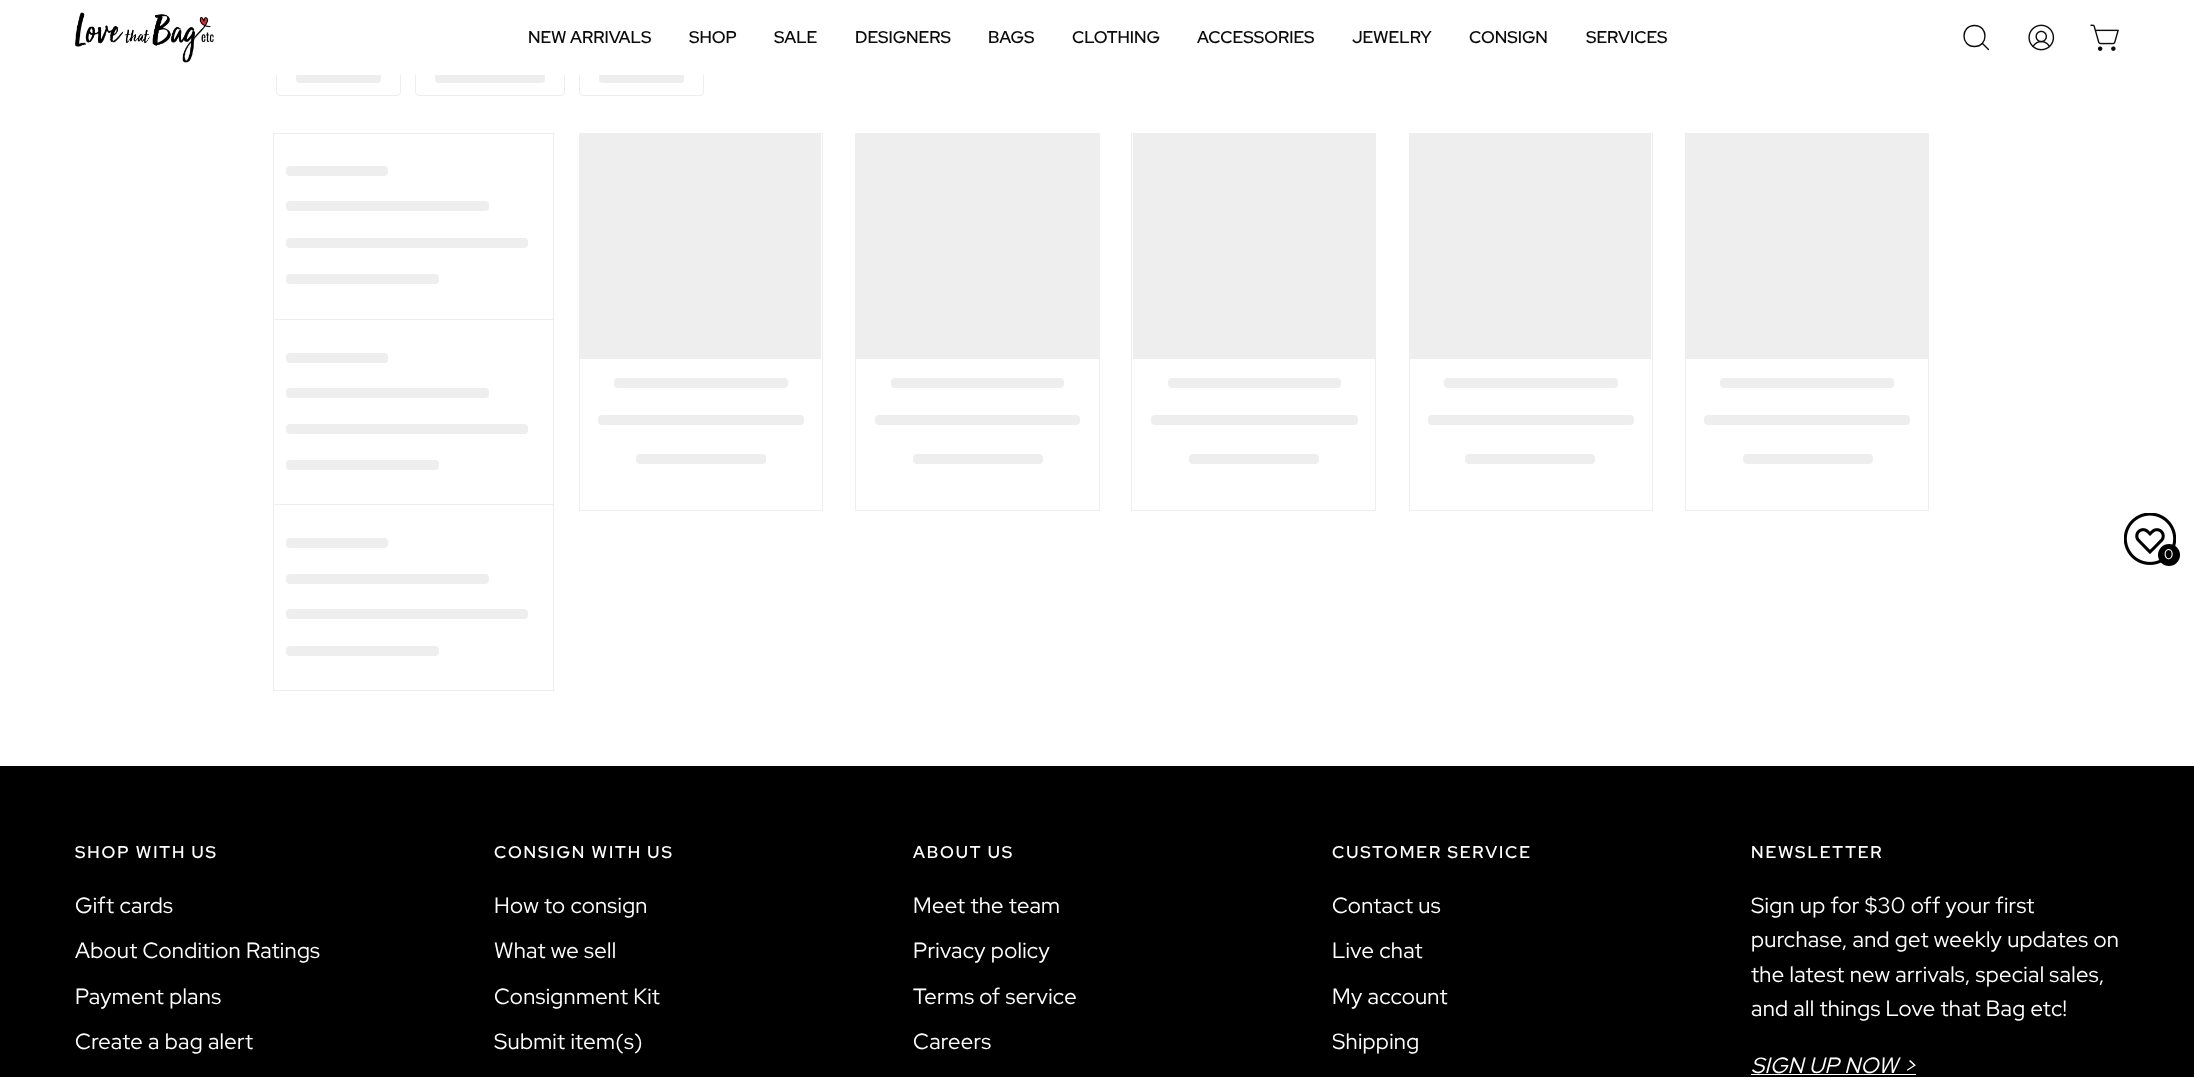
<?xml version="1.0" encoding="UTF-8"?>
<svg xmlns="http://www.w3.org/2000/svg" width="2194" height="1077">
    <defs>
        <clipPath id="clip1"><rect x="1333" y="888" width="368" height="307"/></clipPath>
    </defs>
    <rect width="100%" height="100%" fill="#FFFFFF"/>
    <rect x="276.5" y="54.5" width="124" height="41" rx="3.5" fill="none" stroke="#EEEEEE"/>
    <rect x="296" y="73" width="85" height="10" rx="4" fill="#EEEEEE"/>
    <rect x="415.5" y="54.5" width="149" height="41" rx="3.5" fill="none" stroke="#EEEEEE"/>
    <rect x="435" y="73" width="110" height="10" rx="4" fill="#EEEEEE"/>
    <rect x="579.5" y="54.5" width="124" height="41" rx="3.5" fill="none" stroke="#EEEEEE"/>
    <rect x="599" y="73" width="85" height="10" rx="4" fill="#EEEEEE"/>
    <rect x="276" y="54" width="428" height="21" fill="#FFFFFF"/>
    <image x="75" y="12" width="139" height="51" href="img_01.png"/>
    <text x="528" y="43" font-family="Red Hat Display" font-size="17" font-weight="600" fill="#0B0B0B">NEW ARRIVALS</text>
    <text x="689" y="43" font-family="Red Hat Display" font-size="17" font-weight="600" fill="#0B0B0B">SHOP</text>
    <text x="774" y="43" font-family="Red Hat Display" font-size="17" font-weight="600" fill="#0B0B0B">SALE</text>
    <text x="855" y="43" font-family="Red Hat Display" font-size="17" font-weight="600" fill="#0B0B0B">DESIGNERS</text>
    <text x="988" y="43" font-family="Red Hat Display" font-size="17" font-weight="600" fill="#0B0B0B">BAGS</text>
    <text x="1072" y="43" font-family="Red Hat Display" font-size="17" font-weight="600" fill="#0B0B0B">CLOTHING</text>
    <text x="1197" y="43" font-family="Red Hat Display" font-size="17" font-weight="600" fill="#0B0B0B">ACCESSORIES</text>
    <text x="1352" y="43" font-family="Red Hat Display" font-size="17" font-weight="600" fill="#0B0B0B">JEWELRY</text>
    <text x="1469" y="43" font-family="Red Hat Display" font-size="17" font-weight="600" fill="#0B0B0B">CONSIGN</text>
    <text x="1586" y="43" font-family="Red Hat Display" font-size="17" font-weight="600" fill="#0B0B0B">SERVICES</text>
    <path d="M 1974.5 46.5 C 1988.5 46.5 1988.5 25.5 1974.5 25.5 C 1960.5 25.5 1960.5 46.5 1974.5 46.5 Z M 1982.5 43.5 L 1988.5 49.5" fill="none" stroke="#0B0B0B" stroke-width="1.4" stroke-linecap="round" stroke-linejoin="round"/>
    <image x="2028" y="24" width="27" height="27" href="img_02.png"/>
    <image x="2090" y="24" width="29" height="27" href="img_03.png"/>
    <rect x="273" y="133" width="281" height="1" fill="#EEEEEE"/>
    <rect x="553" y="133" width="1" height="186" fill="#EEEEEE"/>
    <rect x="273" y="133" width="1" height="186" fill="#EEEEEE"/>
    <rect x="286" y="166" width="102" height="10" rx="4" fill="#EEEEEE"/>
    <rect x="286" y="201" width="203" height="10" rx="4" fill="#EEEEEE"/>
    <rect x="286" y="238" width="242" height="10" rx="4" fill="#EEEEEE"/>
    <rect x="286" y="274" width="153" height="10" rx="4" fill="#EEEEEE"/>
    <rect x="273" y="319" width="281" height="1" fill="#EEEEEE"/>
    <rect x="553" y="319" width="1" height="185" fill="#EEEEEE"/>
    <rect x="273" y="319" width="1" height="185" fill="#EEEEEE"/>
    <rect x="286" y="353" width="102" height="10" rx="4" fill="#EEEEEE"/>
    <rect x="286" y="388" width="203" height="10" rx="4" fill="#EEEEEE"/>
    <rect x="286" y="424" width="242" height="10" rx="4" fill="#EEEEEE"/>
    <rect x="286" y="460" width="153" height="10" rx="4" fill="#EEEEEE"/>
    <rect x="273.5" y="504.5" width="280" height="186" fill="none" stroke="#EEEEEE"/>
    <rect x="286" y="538" width="102" height="10" rx="4" fill="#EEEEEE"/>
    <rect x="286" y="574" width="203" height="10" rx="4" fill="#EEEEEE"/>
    <rect x="286" y="609" width="242" height="10" rx="4" fill="#EEEEEE"/>
    <rect x="286" y="646" width="153" height="10" rx="4" fill="#EEEEEE"/>
    <rect x="579.5" y="133.5" width="243" height="377" fill="none" stroke="#EEEEEE"/>
    <rect x="580" y="134" width="241" height="225" fill="#EEEEEE"/>
    <rect x="614" y="378" width="174" height="10" rx="4" fill="#EEEEEE"/>
    <rect x="598" y="415" width="206" height="10" rx="4" fill="#EEEEEE"/>
    <rect x="636" y="454" width="130" height="10" rx="4" fill="#EEEEEE"/>
    <rect x="855.5" y="133.5" width="244" height="377" fill="none" stroke="#EEEEEE"/>
    <rect x="856" y="134" width="243" height="225" fill="#EEEEEE"/>
    <rect x="891" y="378" width="173" height="10" rx="4" fill="#EEEEEE"/>
    <rect x="875" y="415" width="205" height="10" rx="4" fill="#EEEEEE"/>
    <rect x="913" y="454" width="130" height="10" rx="4" fill="#EEEEEE"/>
    <rect x="1131.5" y="133.5" width="244" height="377" fill="none" stroke="#EEEEEE"/>
    <rect x="1133" y="134" width="242" height="225" fill="#EEEEEE"/>
    <rect x="1168" y="378" width="173" height="10" rx="4" fill="#EEEEEE"/>
    <rect x="1151" y="415" width="207" height="10" rx="4" fill="#EEEEEE"/>
    <rect x="1189" y="454" width="130" height="10" rx="4" fill="#EEEEEE"/>
    <rect x="1409.5" y="133.5" width="243" height="377" fill="none" stroke="#EEEEEE"/>
    <rect x="1410" y="134" width="241" height="225" fill="#EEEEEE"/>
    <rect x="1444" y="378" width="174" height="10" rx="4" fill="#EEEEEE"/>
    <rect x="1428" y="415" width="206" height="10" rx="4" fill="#EEEEEE"/>
    <rect x="1465" y="454" width="130" height="10" rx="4" fill="#EEEEEE"/>
    <rect x="1685.5" y="133.5" width="243" height="377" fill="none" stroke="#EEEEEE"/>
    <rect x="1686" y="134" width="242" height="225" fill="#EEEEEE"/>
    <rect x="1720" y="378" width="174" height="10" rx="4" fill="#EEEEEE"/>
    <rect x="1704" y="415" width="206" height="10" rx="4" fill="#EEEEEE"/>
    <rect x="1743" y="454" width="130" height="10" rx="4" fill="#EEEEEE"/>
    <image x="2124" y="513" width="52" height="52" href="img_04.png"/>
    <circle cx="2169" cy="555" r="11" fill="#000000"/>
    <text x="2164" y="559" font-family="Red Hat Display" font-size="14" letter-spacing="0.3" fill="#FFFFFF">0</text>
    <rect x="0" y="766" width="2194" height="311" fill="#000000"/>
    <text x="75" y="858" font-family="Red Hat Display" font-size="17" font-weight="600" letter-spacing="1.9" fill="#FFFFFF">SHOP WITH US</text>
    <text x="75" y="913" font-family="Red Hat Display" font-size="22" letter-spacing="0.3" fill="#FFFFFF">Gift cards</text>
    <text x="75" y="958" font-family="Red Hat Display" font-size="22" letter-spacing="0.3" fill="#FFFFFF">About Condition Ratings</text>
    <text x="75" y="1004" font-family="Red Hat Display" font-size="22" letter-spacing="0.3" fill="#FFFFFF">Payment plans</text>
    <text x="75" y="1049" font-family="Red Hat Display" font-size="22" letter-spacing="0.3" fill="#FFFFFF">Create a bag alert</text>
    <text x="494" y="858" font-family="Red Hat Display" font-size="17" font-weight="600" letter-spacing="1.9" fill="#FFFFFF">CONSIGN WITH US</text>
    <text x="494" y="913" font-family="Red Hat Display" font-size="22" letter-spacing="0.3" fill="#FFFFFF">How to consign</text>
    <text x="494" y="958" font-family="Red Hat Display" font-size="22" letter-spacing="0.3" fill="#FFFFFF">What we sell</text>
    <text x="494" y="1004" font-family="Red Hat Display" font-size="22" letter-spacing="0.3" fill="#FFFFFF">Consignment Kit</text>
    <text x="494" y="1049" font-family="Red Hat Display" font-size="22" letter-spacing="0.3" fill="#FFFFFF">Submit item(s)</text>
    <text x="913" y="858" font-family="Red Hat Display" font-size="17" font-weight="600" letter-spacing="1.9" fill="#FFFFFF">ABOUT US</text>
    <text x="913" y="913" font-family="Red Hat Display" font-size="22" letter-spacing="0.3" fill="#FFFFFF">Meet the team</text>
    <text x="913" y="958" font-family="Red Hat Display" font-size="22" letter-spacing="0.3" fill="#FFFFFF">Privacy policy</text>
    <text x="913" y="1004" font-family="Red Hat Display" font-size="22" letter-spacing="0.3" fill="#FFFFFF">Terms of service</text>
    <text x="913" y="1049" font-family="Red Hat Display" font-size="22" letter-spacing="0.3" fill="#FFFFFF">Careers</text>
    <text x="1332" y="858" font-family="Red Hat Display" font-size="17" font-weight="600" letter-spacing="1.9" fill="#FFFFFF">CUSTOMER SERVICE</text>
    <text x="1332" y="913" font-family="Red Hat Display" font-size="22" letter-spacing="0.3" fill="#FFFFFF">Contact us</text>
    <text x="1332" y="958" font-family="Red Hat Display" font-size="22" letter-spacing="0.3" fill="#FFFFFF">Live chat</text>
    <text x="1332" y="1004" font-family="Red Hat Display" font-size="22" letter-spacing="0.3" fill="#FFFFFF">My account</text>
    <g clip-path="url(#clip1)">
        <text x="1332" y="1049" font-family="Red Hat Display" font-size="22" letter-spacing="0.3" fill="#FFFFFF">Shipping</text>
    </g>
    <text x="1751" y="858" font-family="Red Hat Display" font-size="17" font-weight="600" letter-spacing="1.9" fill="#FFFFFF">NEWSLETTER</text>
    <text font-family="Red Hat Display" font-size="22" letter-spacing="0.3" fill="#FFFFFF">
        <tspan x="1751" y="913">Sign up for $30 off your first</tspan>
        <tspan x="1751" y="947">purchase, and get weekly updates on</tspan>
        <tspan x="1751" y="982">the latest new arrivals, special sales,</tspan>
        <tspan x="1751" y="1016">and all things Love that Bag etc!</tspan>
    </text>
    <text x="1751" y="1073" font-family="Red Hat Display" font-size="22" font-style="italic" letter-spacing="0.3" fill="#FFFFFF">SIGN UP NOW &gt;</text>
    <rect x="1751" y="1074" width="165" height="1" fill="#FFFFFF"/>
</svg>
